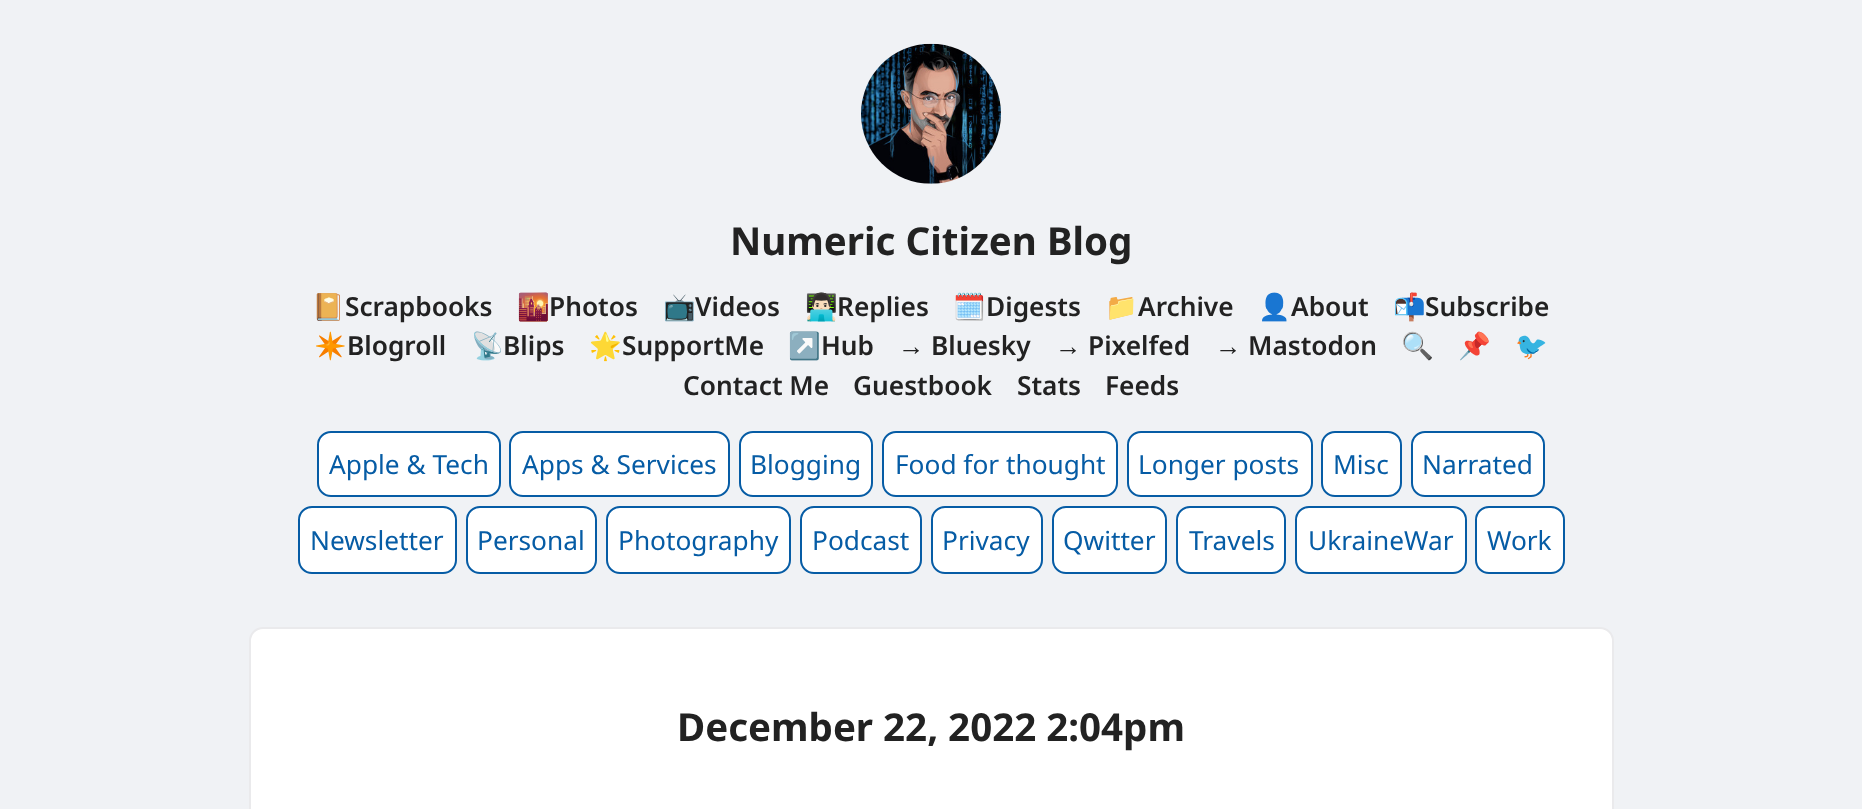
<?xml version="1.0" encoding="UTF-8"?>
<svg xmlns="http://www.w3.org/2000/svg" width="1862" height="809">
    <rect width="100%" height="100%" fill="#F0F2F5"/>
    <image x="861" y="43" width="140" height="141" href="img_01.png"/>
    <text x="730" y="255" font-family="Noto Sans" font-size="38.5" font-weight="700" fill="#222222">Numeric Citizen Blog</text>
    <text x="312" y="316" font-family="Noto Color Emoji" font-size="26.25" fill="#222222">📔</text>
    <text x="345" y="316" font-family="Noto Sans" font-size="26.25" font-weight="600" fill="#222222">Scrapbooks</text>
    <text x="517" y="316" font-family="Noto Color Emoji" font-size="26.25" fill="#222222">🌇</text>
    <text x="549" y="316" font-family="Noto Sans" font-size="26.25" font-weight="600" fill="#222222">Photos</text>
    <text x="663" y="316" font-family="Noto Color Emoji" font-size="26.25" fill="#222222">📺</text>
    <text x="695" y="316" font-family="Noto Sans" font-size="26.25" font-weight="600" fill="#222222">Videos</text>
    <text x="805" y="316" font-family="Noto Color Emoji" font-size="26.25" fill="#222222">👨🏻‍💻</text>
    <text x="837" y="316" font-family="Noto Sans" font-size="26.25" font-weight="600" fill="#222222">Replies</text>
    <text x="953" y="316" font-family="Noto Color Emoji" font-size="26.25" fill="#222222">🗓️</text>
    <text x="986" y="316" font-family="Noto Sans" font-size="26.25" font-weight="600" fill="#222222">Digests</text>
    <text x="1105" y="316" font-family="Noto Color Emoji" font-size="26.25" fill="#222222">📁</text>
    <text x="1138" y="316" font-family="Noto Sans" font-size="26.25" font-weight="600" fill="#222222">Archive</text>
    <text x="1258" y="316" font-family="Noto Color Emoji" font-size="26.25" fill="#222222">👤</text>
    <text x="1291" y="316" font-family="Noto Sans" font-size="26.25" font-weight="600" fill="#222222">About</text>
    <text x="1393" y="316" font-family="Noto Color Emoji" font-size="26.25" fill="#222222">📬</text>
    <text x="1425" y="316" font-family="Noto Sans" font-size="26.25" font-weight="600" fill="#222222">Subscribe</text>
    <text x="314" y="355" font-family="Noto Color Emoji" font-size="26.25" fill="#222222">✴️</text>
    <text x="347" y="355" font-family="Noto Sans" font-size="26.25" font-weight="600" fill="#222222">Blogroll</text>
    <text x="471" y="355" font-family="Noto Color Emoji" font-size="26.25" fill="#222222">📡</text>
    <text x="503" y="355" font-family="Noto Sans" font-size="26.25" font-weight="600" fill="#222222">Blips</text>
    <text x="589" y="355" font-family="Noto Color Emoji" font-size="26.25" fill="#222222">🌟</text>
    <text x="622" y="355" font-family="Noto Sans" font-size="26.25" font-weight="600" fill="#222222">SupportMe</text>
    <text x="788" y="355" font-family="Noto Color Emoji" font-size="26.25" fill="#222222">↗️</text>
    <text x="821" y="355" font-family="Noto Sans" font-size="26.25" font-weight="600" fill="#222222">Hub</text>
    <text x="898" y="355" font-family="Liberation Sans" font-size="26.25" font-weight="700" fill="#222222">→</text>
    <text x="931" y="355" font-family="Noto Sans" font-size="26.25" font-weight="600" fill="#222222">Bluesky</text>
    <text x="1055" y="355" font-family="Liberation Sans" font-size="26.25" font-weight="700" fill="#222222">→</text>
    <text x="1088" y="355" font-family="Noto Sans" font-size="26.25" font-weight="600" fill="#222222">Pixelfed</text>
    <text x="1215" y="355" font-family="Liberation Sans" font-size="26.25" font-weight="700" fill="#222222">→</text>
    <text x="1248" y="355" font-family="Noto Sans" font-size="26.25" font-weight="600" fill="#222222">Mastodon</text>
    <text x="1401" y="355" font-family="Noto Color Emoji" font-size="26.25" fill="#222222">🔍</text>
    <text x="1458" y="355" font-family="Noto Color Emoji" font-size="26.25" fill="#222222">📌</text>
    <text x="1515" y="355" font-family="Noto Color Emoji" font-size="26.25" fill="#222222">🐦</text>
    <text x="683" y="395" font-family="Noto Sans" font-size="26.25" font-weight="600" fill="#222222">Contact Me</text>
    <text x="853" y="395" font-family="Noto Sans" font-size="26.25" font-weight="600" fill="#222222">Guestbook</text>
    <text x="1017" y="395" font-family="Noto Sans" font-size="26.25" font-weight="600" fill="#222222">Stats</text>
    <text x="1105" y="395" font-family="Noto Sans" font-size="26.25" font-weight="600" fill="#222222">Feeds</text>
    <rect x="318" y="432" width="182" height="64" rx="13" fill="#FFFFFF" stroke="#065CA5" stroke-width="2"/>
    <text x="329" y="474" font-family="Noto Sans" font-size="26.25" fill="#065CA5">Apple &amp; Tech</text>
    <rect x="510" y="432" width="219" height="64" rx="13" fill="#FFFFFF" stroke="#065CA5" stroke-width="2"/>
    <text x="522" y="474" font-family="Noto Sans" font-size="26.25" fill="#065CA5">Apps &amp; Services</text>
    <rect x="740" y="432" width="132" height="64" rx="13" fill="#FFFFFF" stroke="#065CA5" stroke-width="2"/>
    <text x="750" y="474" font-family="Noto Sans" font-size="26.25" fill="#065CA5">Blogging</text>
    <rect x="883" y="432" width="234" height="64" rx="13" fill="#FFFFFF" stroke="#065CA5" stroke-width="2"/>
    <text x="895" y="474" font-family="Noto Sans" font-size="26.25" fill="#065CA5">Food for thought</text>
    <rect x="1128" y="432" width="184" height="64" rx="13" fill="#FFFFFF" stroke="#065CA5" stroke-width="2"/>
    <text x="1138" y="474" font-family="Noto Sans" font-size="26.25" fill="#065CA5">Longer posts</text>
    <rect x="1322" y="432" width="79" height="64" rx="13" fill="#FFFFFF" stroke="#065CA5" stroke-width="2"/>
    <text x="1333" y="474" font-family="Noto Sans" font-size="26.25" fill="#065CA5">Misc</text>
    <rect x="1412" y="432" width="132" height="64" rx="13" fill="#FFFFFF" stroke="#065CA5" stroke-width="2"/>
    <text x="1422" y="474" font-family="Noto Sans" font-size="26.25" fill="#065CA5">Narrated</text>
    <rect x="299" y="507" width="157" height="66" rx="13" fill="#FFFFFF" stroke="#065CA5" stroke-width="2"/>
    <text x="310" y="550" font-family="Noto Sans" font-size="26.25" fill="#065CA5">Newsletter</text>
    <rect x="467" y="507" width="129" height="66" rx="13" fill="#FFFFFF" stroke="#065CA5" stroke-width="2"/>
    <text x="477" y="550" font-family="Noto Sans" font-size="26.25" fill="#065CA5">Personal</text>
    <rect x="607" y="507" width="183" height="66" rx="13" fill="#FFFFFF" stroke="#065CA5" stroke-width="2"/>
    <text x="618" y="550" font-family="Noto Sans" font-size="26.25" fill="#065CA5">Photography</text>
    <rect x="801" y="507" width="120" height="66" rx="13" fill="#FFFFFF" stroke="#065CA5" stroke-width="2"/>
    <text x="812" y="550" font-family="Noto Sans" font-size="26.25" fill="#065CA5">Podcast</text>
    <rect x="932" y="507" width="110" height="66" rx="13" fill="#FFFFFF" stroke="#065CA5" stroke-width="2"/>
    <text x="942" y="550" font-family="Noto Sans" font-size="26.25" fill="#065CA5">Privacy</text>
    <rect x="1053" y="507" width="113" height="66" rx="13" fill="#FFFFFF" stroke="#065CA5" stroke-width="2"/>
    <text x="1063" y="550" font-family="Noto Sans" font-size="26.25" fill="#065CA5">Qwitter</text>
    <rect x="1177" y="507" width="108" height="66" rx="13" fill="#FFFFFF" stroke="#065CA5" stroke-width="2"/>
    <text x="1189" y="550" font-family="Noto Sans" font-size="26.25" fill="#065CA5">Travels</text>
    <rect x="1296" y="507" width="170" height="66" rx="13" fill="#FFFFFF" stroke="#065CA5" stroke-width="2"/>
    <text x="1308" y="550" font-family="Noto Sans" font-size="26.25" fill="#065CA5">UkraineWar</text>
    <rect x="1476" y="507" width="88" height="66" rx="13" fill="#FFFFFF" stroke="#065CA5" stroke-width="2"/>
    <text x="1487" y="550" font-family="Noto Sans" font-size="26.25" fill="#065CA5">Work</text>
    <rect x="250" y="628" width="1363" height="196" rx="13" fill="#FFFFFF" stroke="#EAEAEC" stroke-width="2"/>
    <text x="677" y="741" font-family="Noto Sans" font-size="38.5" font-weight="700" fill="#222222">December 22, 2022 2:04pm</text>
</svg>
